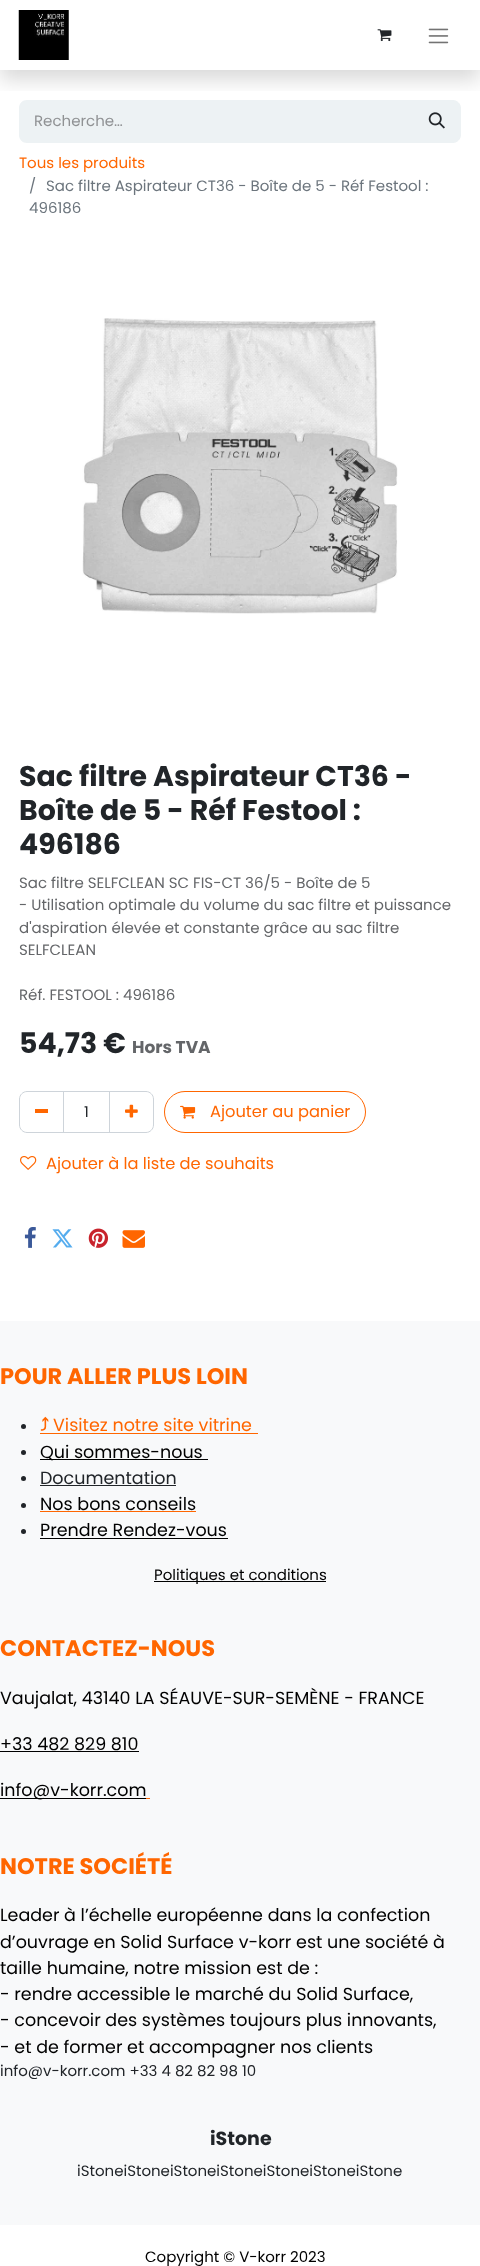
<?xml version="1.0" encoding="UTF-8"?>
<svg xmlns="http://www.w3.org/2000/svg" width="480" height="2266">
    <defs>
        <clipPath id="clip1"><rect x="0" y="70" width="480" height="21"/></clipPath>
        <filter id="blur1" x="-50%" y="-200%" width="200%" height="500%"><feGaussianBlur stdDeviation="10"/></filter>
    </defs>
    <rect width="100%" height="100%" fill="#FFFFFF"/>
    <path d="M 27 100 H 414 V 143 H 27 C 22.5 143 19 139.5 19 135 V 108 C 19 103.5 22.5 100 27 100 Z" fill="#EDF2F4"/>
    <path d="M 413.5 100.5 H 453 C 457 100.5 460.5 104 460.5 108 V 135 C 460.5 139 457 142.5 453 142.5 H 413.5 Z" fill="#EDF2F4" stroke="#EDF2F4"/>
    <g clip-path="url(#clip1)">
        <rect x="0" y="10" width="480" height="70" fill="#000000" fill-opacity="0.15" filter="url(#blur1)"/>
    </g>
    <image x="18" y="10" width="51" height="50" href="img_01.png"/>
    <image x="377" y="29" width="15" height="13" href="img_02.png"/>
    <image x="428" y="28" width="21" height="16" href="img_03.png"/>
    <text x="34" y="126" font-family="Poppins" font-size="15" fill="#909294">Recherche…</text>
    <image x="428" y="112" width="17" height="17" href="img_04.png"/>
    <text x="19" y="168" font-family="Poppins" font-size="15" fill="#FF6600">Tous les produits</text>
    <text x="29" y="191" font-family="Poppins" font-size="15" fill="#6C757D">/</text>
    <text x="46" y="191" font-family="Poppins" font-size="15" fill="#6C757D">Sac filtre Aspirateur CT36 - Boîte de 5 - Réf Festool :</text>
    <text x="29" y="213" font-family="Poppins" font-size="15" fill="#6C757D">496186</text>
    <image x="82" y="318" width="316" height="296" href="img_05.png"/>
    <text font-family="Poppins" font-size="28.4" font-weight="700" fill="#212529">
        <tspan x="19" y="786">Sac filtre Aspirateur CT36 -</tspan>
        <tspan x="19" y="820">Boîte de 5 - Réf Festool :</tspan>
        <tspan x="19" y="854">496186</tspan>
    </text>
    <text font-family="Poppins" font-size="15" fill="#646669">
        <tspan x="19" y="888">Sac filtre SELFCLEAN SC FIS-CT 36/5 - Boîte de 5</tspan>
        <tspan x="19" y="910">- Utilisation optimale du volume du sac filtre et puissance</tspan>
        <tspan x="19" y="933">d'aspiration élevée et constante grâce au sac filtre</tspan>
        <tspan x="19" y="955">SELFCLEAN</tspan>
    </text>
    <text x="19" y="1000" font-family="Poppins" font-size="15" fill="#646669">Réf. FESTOOL : 496186</text>
    <text x="19" y="1053" font-family="Poppins" font-size="28.4" font-weight="700" fill="#212529">54,73 €</text>
    <text x="132" y="1053" font-family="Poppins" font-size="17" font-weight="700" fill="#646669">Hors TVA</text>
    <rect x="63.5" y="1091.5" width="46" height="41" fill="none" stroke="#CED4DA"/>
    <path d="M 27 1091.5 H 63.5 V 1132.5 H 27 C 23 1132.5 19.5 1129 19.5 1125 V 1099 C 19.5 1095 23 1091.5 27 1091.5 Z" fill="none" stroke="#CED4DA"/>
    <rect x="35" y="1109" width="13" height="4" fill="#FF6600"/>
    <text x="84" y="1117" font-family="Poppins" font-size="15" fill="#212529">1</text>
    <path d="M 109.5 1091.5 H 146 C 150 1091.5 153.5 1095 153.5 1099 V 1125 C 153.5 1129 150 1132.5 146 1132.5 H 109.5 Z" fill="none" stroke="#CED4DA"/>
    <image x="125" y="1104" width="13" height="14" href="img_06.png"/>
    <rect x="164.5" y="1091.5" width="201" height="41" rx="20.5" fill="none" stroke="#FF6600"/>
    <image x="180" y="1105" width="16" height="14" href="img_07.png"/>
    <text x="210" y="1117" font-family="Poppins" font-size="16.25" fill="#FF6600">Ajouter au panier</text>
    <image x="20" y="1156" width="17" height="14" href="img_08.png"/>
    <text x="46" y="1169" font-family="Poppins" font-size="16.25" fill="#FF6600">Ajouter à la liste de souhaits</text>
    <image x="24" y="1227" width="12" height="21" href="img_09.png"/>
    <image x="52" y="1229" width="21" height="19" href="img_10.png"/>
    <image x="88" y="1228" width="20" height="20" href="img_11.png"/>
    <image x="122" y="1230" width="23" height="18" href="img_12.png"/>
    <rect x="0" y="1321" width="480" height="904" fill="#F8F9FA"/>
    <text x="0" y="1384" font-family="Poppins" font-size="22.5" font-weight="700" fill="#FF6600">POUR ALLER PLUS LOIN</text>
    <circle cx="23.5" cy="1426.5" r="2.5" fill="#212529"/>
    <text x="40" y="1431" font-family="IPAGothic" font-size="17.5" font-weight="700" fill="#FF6600">⤴</text>
    <text x="53" y="1431" font-family="Poppins" font-size="17.5" fill="#FF6600">Visitez notre site vitrine</text>
    <rect x="40" y="1433" width="218" height="1" fill="#FF6600"/>
    <circle cx="23.5" cy="1452.5" r="2.5" fill="#212529"/>
    <rect x="40" y="1459" width="168" height="1" fill="#000000"/>
    <text x="40" y="1458" font-family="Poppins" font-size="17.5" fill="#000000">Qui sommes-nous</text>
    <circle cx="23.5" cy="1478.5" r="2.5" fill="#212529"/>
    <text x="40" y="1484" font-family="Poppins" font-size="17.5" fill="#212529">Documentation</text>
    <rect x="40" y="1485" width="136" height="1" fill="#212529"/>
    <circle cx="23.5" cy="1505.5" r="2.5" fill="#212529"/>
    <text x="40" y="1510" font-family="Poppins" font-size="17.5" fill="#000000">Nos bons conseils</text>
    <rect x="40" y="1511" width="156" height="1" fill="#FF6600"/>
    <circle cx="23.5" cy="1531.5" r="2.5" fill="#212529"/>
    <text x="40" y="1536" font-family="Poppins" font-size="17.5" fill="#000000">Prendre Rendez-vous</text>
    <rect x="40" y="1538" width="188" height="1" fill="#000000"/>
    <rect x="154" y="1581" width="172" height="1" fill="#000000"/>
    <text x="154" y="1580" font-family="Poppins" font-size="15" fill="#000000">Politiques et conditions</text>
    <text x="0" y="1656" font-family="Poppins" font-size="22.5" font-weight="700" fill="#FF6600">CONTACTEZ-NOUS</text>
    <text x="0" y="1704" font-family="Poppins" font-size="17.5" fill="#000000">Vaujalat, 43140 LA SÉAUVE-SUR-SEMÈNE - FRANCE</text>
    <text x="0" y="1750" font-family="Poppins" font-size="17.5" fill="#000000">+33 482 829 810</text>
    <rect x="0" y="1751" width="139" height="1" fill="#000000"/>
    <rect x="0" y="1798" width="146" height="1" fill="#000000"/>
    <text x="0" y="1796" font-family="Poppins" font-size="17.5" fill="#000000">info@v-korr.com</text>
    <rect x="146" y="1798" width="4" height="1" fill="#FF6600"/>
    <text x="0" y="1874" font-family="Poppins" font-size="22.5" font-weight="700" fill="#FF6600">NOTRE SOCIÉTÉ</text>
    <text font-family="Poppins" font-size="17.5" fill="#000000">
        <tspan x="0" y="1921">Leader à l’échelle européenne dans la confection</tspan>
        <tspan x="0" y="1948">d’ouvrage en Solid Surface v-korr est une société à</tspan>
        <tspan x="0" y="1974">taille humaine, notre mission est de :</tspan>
        <tspan x="0" y="2000">- rendre accessible le marché du Solid Surface,</tspan>
        <tspan x="0" y="2026">- concevoir des systèmes toujours plus innovants,</tspan>
        <tspan x="0" y="2053">- et de former et accompagner nos clients</tspan>
    </text>
    <text x="0" y="2076" font-family="Poppins" font-size="15" fill="#212529">info@v-korr.com +33 4 82 82 98 10</text>
    <text x="210" y="2145" font-family="Poppins" font-size="19" font-weight="700" fill="#212529">iStone</text>
    <text x="77" y="2176" font-family="Poppins" font-size="15" fill="#212529">iStoneiStoneiStoneiStoneiStoneiStoneiStone</text>
    <text x="145" y="2262" font-family="Poppins" font-size="15" fill="#000000">Copyright © V-korr 2023</text>
</svg>
